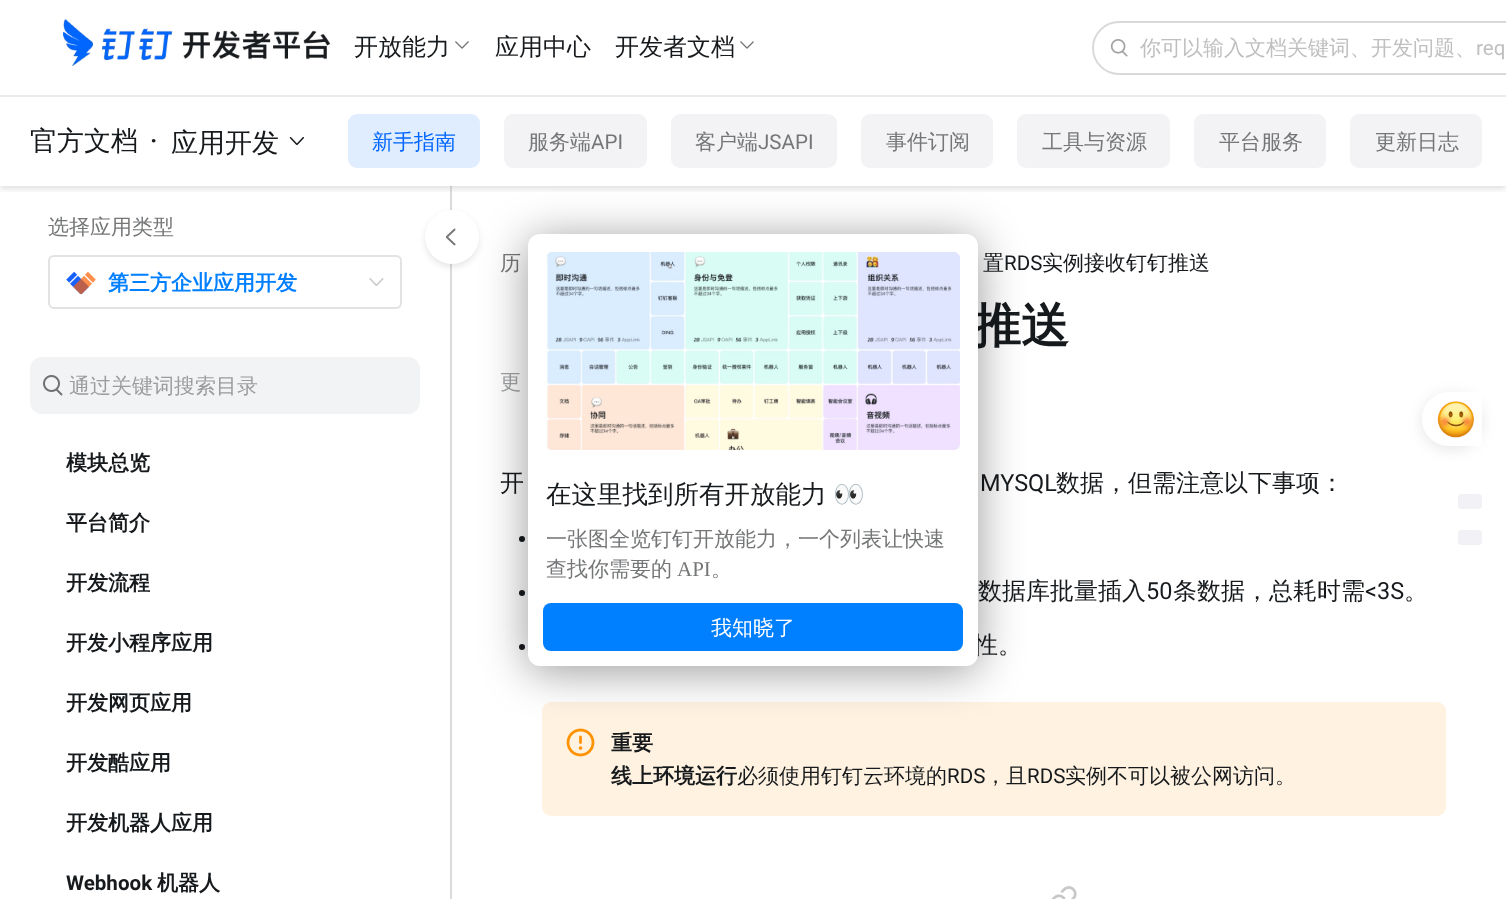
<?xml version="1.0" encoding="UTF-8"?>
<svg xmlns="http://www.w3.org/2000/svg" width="1506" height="899">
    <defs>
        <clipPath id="clip1"><rect x="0" y="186" width="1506" height="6"/></clipPath>
        <filter id="blur1" x="-50%" y="-200%" width="200%" height="500%"><feGaussianBlur stdDeviation="3"/></filter>
        <filter id="blur2" x="-50%" y="-200%" width="200%" height="500%"><feGaussianBlur stdDeviation="7.5"/></filter>
        <filter id="blur3" x="-50%" y="-200%" width="200%" height="500%"><feGaussianBlur stdDeviation="22.5"/></filter>
    </defs>
    <rect width="100%" height="100%" fill="#FFFFFF"/>
    <rect x="450" y="186" width="2" height="713" fill="#F6F6F6"/>
    <g clip-path="url(#clip1)">
        <rect x="0" y="99" width="1506" height="90" fill="#000000" fill-opacity="0.12" filter="url(#blur1)"/>
    </g>
    <rect x="0" y="95" width="1506" height="2" fill="#EAEBED"/>
    <image x="63" y="19" width="268" height="47" href="img_01.png"/>
    <text x="354" y="55" font-family="WenQuanYi Zen Hei" font-size="24" font-weight="500" fill="#171A1D">开放能力</text>
    <image x="455" y="41" width="14" height="8" href="img_02.png"/>
    <text x="495" y="55" font-family="WenQuanYi Zen Hei" font-size="24" font-weight="500" fill="#171A1D">应用中心</text>
    <text x="615" y="55" font-family="WenQuanYi Zen Hei" font-size="24" font-weight="500" fill="#171A1D">开发者文档</text>
    <image x="740" y="41" width="14" height="8" href="img_02.png"/>
    <rect x="1093" y="22" width="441" height="52" rx="26" fill="none" stroke="#D9D9D9" stroke-width="2"/>
    <image x="1110" y="39" width="18" height="18" href="img_03.png"/>
    <text x="1140" y="55" font-family="WenQuanYi Zen Hei" font-size="21" font-weight="500" fill="#BFBFBF">你可以输入文档关键词、开发问题、</text>
    <text x="1476" y="55" font-family="Roboto" font-size="21" fill="#BFBFBF">req</text>
    <text x="30" y="150" font-family="WenQuanYi Zen Hei" font-size="27" font-weight="500" fill="#171A1D">官方文档</text>
    <text x="150" y="150" font-family="Roboto" font-size="27" font-weight="500" fill="#171A1D">·</text>
    <text x="171" y="152" font-family="WenQuanYi Zen Hei" font-size="27" font-weight="500" fill="#171A1D">应用开发</text>
    <image x="289" y="137" width="15" height="8" href="img_04.png"/>
    <rect x="348" y="114" width="132" height="54" rx="9" fill="#E0EDFF"/>
    <text x="372" y="149" font-family="WenQuanYi Zen Hei" font-size="21" font-weight="500" fill="#0066FF">新手指南</text>
    <rect x="504" y="114" width="143" height="54" rx="9" fill="#F3F3F5"/>
    <text x="528" y="149" font-family="WenQuanYi Zen Hei" font-size="21" font-weight="500" fill="#747677">服务端</text>
    <text x="591" y="149" font-family="Roboto" font-size="21" fill="#747677">API</text>
    <rect x="671" y="114" width="166" height="54" rx="9" fill="#F3F3F5"/>
    <text x="695" y="149" font-family="WenQuanYi Zen Hei" font-size="21" font-weight="500" fill="#747677">客户端</text>
    <text x="758" y="149" font-family="Roboto" font-size="21" fill="#747677">JSAPI</text>
    <rect x="861" y="114" width="132" height="54" rx="9" fill="#F3F3F5"/>
    <text x="886" y="149" font-family="WenQuanYi Zen Hei" font-size="21" font-weight="500" fill="#747677">事件订阅</text>
    <rect x="1017" y="114" width="153" height="54" rx="9" fill="#F3F3F5"/>
    <text x="1042" y="149" font-family="WenQuanYi Zen Hei" font-size="21" font-weight="500" fill="#747677">工具与资源</text>
    <rect x="1194" y="114" width="132" height="54" rx="9" fill="#F3F3F5"/>
    <text x="1219" y="149" font-family="WenQuanYi Zen Hei" font-size="21" font-weight="500" fill="#747677">平台服务</text>
    <rect x="1350" y="114" width="132" height="54" rx="9" fill="#F3F3F5"/>
    <text x="1375" y="149" font-family="WenQuanYi Zen Hei" font-size="21" font-weight="500" fill="#747677">更新日志</text>
    <text x="48" y="234" font-family="WenQuanYi Zen Hei" font-size="21" font-weight="500" fill="#747677">选择应用类型</text>
    <rect x="49" y="256" width="352" height="52" rx="5" fill="none" stroke="#E0E2E4" stroke-width="2"/>
    <image x="66" y="271" width="30" height="24" href="img_05.png"/>
    <text x="108" y="290" font-family="WenQuanYi Zen Hei" font-size="21" font-weight="700" fill="#007FFF">第三方企业应用开发</text>
    <image x="369" y="278" width="15" height="8" href="img_06.png"/>
    <rect x="30" y="357" width="390" height="57" rx="12" fill="#F2F3F4"/>
    <image x="43" y="375" width="20" height="21" href="img_07.png"/>
    <text x="69" y="393" font-family="WenQuanYi Zen Hei" font-size="21" font-weight="500" fill="#9A9C9E">通过关键词搜索目录</text>
    <text x="66" y="470" font-family="WenQuanYi Zen Hei" font-size="21" font-weight="700" fill="#171A1D">模块总览</text>
    <text x="66" y="530" font-family="WenQuanYi Zen Hei" font-size="21" font-weight="700" fill="#171A1D">平台简介</text>
    <text x="66" y="590" font-family="WenQuanYi Zen Hei" font-size="21" font-weight="700" fill="#171A1D">开发流程</text>
    <text x="66" y="650" font-family="WenQuanYi Zen Hei" font-size="21" font-weight="700" fill="#171A1D">开发小程序应用</text>
    <text x="66" y="710" font-family="WenQuanYi Zen Hei" font-size="21" font-weight="700" fill="#171A1D">开发网页应用</text>
    <text x="66" y="770" font-family="WenQuanYi Zen Hei" font-size="21" font-weight="700" fill="#171A1D">开发酷应用</text>
    <text x="66" y="830" font-family="WenQuanYi Zen Hei" font-size="21" font-weight="700" fill="#171A1D">开发机器人应用</text>
    <text x="66" y="890" font-family="Roboto" font-size="21" font-weight="700" fill="#171A1D">Webhook</text>
    <text x="157" y="890" font-family="WenQuanYi Zen Hei" font-size="21" font-weight="700" fill="#171A1D">机器人</text>
    <rect x="450" y="186" width="2" height="713" fill="#7E868E" fill-opacity="0.24"/>
    <rect x="425" y="213" width="54" height="54" rx="27" fill="#000000" fill-opacity="0.1" filter="url(#blur1)"/>
    <circle cx="452" cy="237" r="27" fill="#FFFFFF"/>
    <image x="446" y="228" width="10" height="18" href="img_08.png"/>
    <text x="500" y="270" font-family="WenQuanYi Zen Hei" font-size="21" font-weight="500" fill="#747677">历</text>
    <text x="983" y="270" font-family="WenQuanYi Zen Hei" font-size="21" font-weight="500" fill="#171A1D">置</text>
    <text x="1004" y="270" font-family="Roboto" font-size="21" fill="#171A1D">RDS</text>
    <text x="1042" y="270" font-family="WenQuanYi Zen Hei" font-size="21" font-weight="500" fill="#171A1D">实例接收钉钉推送</text>
    <text x="973" y="342" font-family="WenQuanYi Zen Hei" font-size="48" font-weight="700" fill="#171A1D">推送</text>
    <text x="500" y="389" font-family="WenQuanYi Zen Hei" font-size="21" font-weight="500" fill="#A2A3A5">更</text>
    <text x="500" y="491" font-family="WenQuanYi Zen Hei" font-size="24" font-weight="500" fill="#171A1D">开</text>
    <text x="980" y="491" font-family="Roboto" font-size="24" fill="#171A1D">MYSQL</text>
    <text x="1056" y="491" font-family="WenQuanYi Zen Hei" font-size="24" font-weight="500" fill="#171A1D">数据，但需注意以下事项：</text>
    <circle cx="522" cy="539" r="3" fill="#171A1D"/>
    <circle cx="522" cy="593" r="3" fill="#171A1D"/>
    <text x="978" y="599" font-family="WenQuanYi Zen Hei" font-size="24" font-weight="500" fill="#171A1D">数据库批量插入</text>
    <text x="1146" y="599" font-family="Roboto" font-size="24" fill="#171A1D">50</text>
    <text x="1173" y="599" font-family="WenQuanYi Zen Hei" font-size="24" font-weight="500" fill="#171A1D">条数据，总耗时需</text>
    <text x="1365" y="599" font-family="Roboto" font-size="24" fill="#171A1D">&lt;3S</text>
    <text x="1404" y="599" font-family="WenQuanYi Zen Hei" font-size="24" font-weight="500" fill="#171A1D">。</text>
    <circle cx="522" cy="647" r="3" fill="#171A1D"/>
    <text x="974" y="653" font-family="WenQuanYi Zen Hei" font-size="24" font-weight="500" fill="#171A1D">性。</text>
    <rect x="542" y="702" width="904" height="114" rx="9" fill="#FFF2E1"/>
    <image x="566" y="728" width="29" height="29" href="img_09.png"/>
    <text font-family="WenQuanYi Zen Hei" font-size="21" font-weight="700" fill="#171A1D">
        <tspan x="611" y="750">重要</tspan>
        <tspan x="611" y="783">线上环境运行</tspan>
    </text>
    <text x="737" y="783" font-family="WenQuanYi Zen Hei" font-size="21" font-weight="500" fill="#171A1D">必须使用钉钉云环境的</text>
    <text x="947" y="783" font-family="Roboto" font-size="21" fill="#171A1D">RDS</text>
    <text x="985" y="783" font-family="WenQuanYi Zen Hei" font-size="21" font-weight="500" fill="#171A1D">，且</text>
    <text x="1027" y="783" font-family="Roboto" font-size="21" fill="#171A1D">RDS</text>
    <text x="1065" y="783" font-family="WenQuanYi Zen Hei" font-size="21" font-weight="500" fill="#171A1D">实例不可以被公网访问。</text>
    <image x="1051" y="886" width="26" height="13" href="img_10.png"/>
    <rect x="1422" y="395" width="60" height="54" rx="27" fill="#000000" fill-opacity="0.1" filter="url(#blur2)"/>
    <path d="M 1449 392 H 1482 V 446 H 1449 C 1434 446 1422 434 1422 419 C 1422 404 1434 392 1449 392 Z" fill="#FFFFFF"/>
    <image x="1437" y="401" width="37" height="37" href="img_11.png"/>
    <rect x="1458" y="494" width="24" height="15" rx="3" fill="#F2F2F6"/>
    <rect x="1458" y="530" width="24" height="15" rx="3" fill="#F2F2F6"/>
    <rect x="528" y="239" width="450" height="432" rx="12" fill="#000000" fill-opacity="0.4" filter="url(#blur3)"/>
    <rect x="528" y="234" width="450" height="432" rx="12" fill="#FFFFFF"/>
    <image x="546" y="252" width="414" height="198" href="img_12.png"/>
    <text x="546" y="503" font-family="WenQuanYi Zen Hei" font-size="25.5" font-weight="500" fill="#171A1D">在这里找到所有开放能力</text>
    <text x="833" y="503" font-family="Noto Color Emoji" font-size="25.5" fill="#171A1D">👀</text>
    <text font-family="WenQuanYi Zen Hei" font-size="21" font-weight="500" fill="#747677">
        <tspan x="546" y="546">一张图全览钉钉开放能力，一个列表让快速</tspan>
        <tspan x="546" y="576">查找你需要的</tspan>
    </text>
    <text x="677" y="576" font-family="Liberation Serif" font-size="21" fill="#747677">API</text>
    <text x="711" y="576" font-family="WenQuanYi Zen Hei" font-size="21" font-weight="500" fill="#747677">。</text>
    <rect x="543" y="603" width="420" height="48" rx="8" fill="#007FFF"/>
    <text x="711" y="635" font-family="WenQuanYi Zen Hei" font-size="21" font-weight="500" fill="#FFFFFF">我知晓了</text>
</svg>
